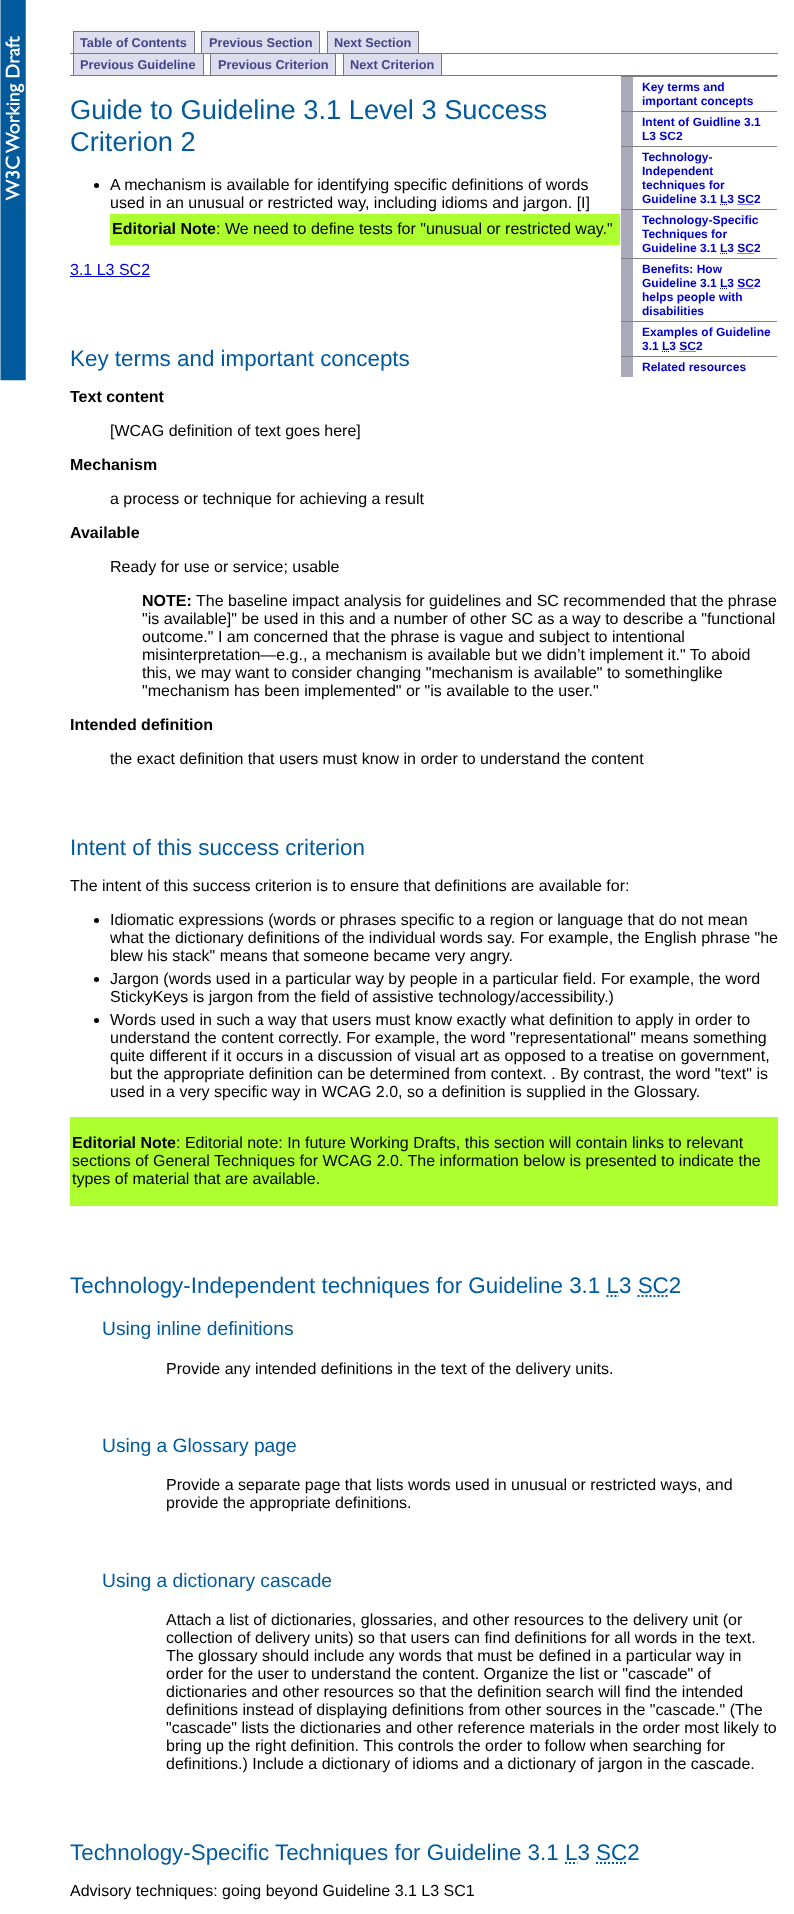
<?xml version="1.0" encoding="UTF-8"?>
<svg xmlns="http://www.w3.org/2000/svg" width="794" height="1914">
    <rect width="100%" height="100%" fill="#FFFFFF"/>
    <image x="0" y="0" width="26" height="381" href="img_01.png"/>
    <rect x="70" y="53" width="708" height="1" fill="#777788"/>
    <rect x="74" y="32" width="120" height="21" fill="#DDDDEE"/>
    <text x="80" y="47" font-family="Liberation Sans" font-size="12.75" font-weight="700" fill="#444488">Table of Contents</text>
    <rect x="73" y="31" width="122" height="1" fill="#777788"/>
    <rect x="194" y="31" width="1" height="22" fill="#777788"/>
    <rect x="73" y="31" width="1" height="44" fill="#777788"/>
    <rect x="202" y="32" width="117" height="21" fill="#DDDDEE"/>
    <text x="209" y="47" font-family="Liberation Sans" font-size="12.75" font-weight="700" fill="#444488">Previous Section</text>
    <rect x="201" y="31" width="119" height="1" fill="#777788"/>
    <rect x="319" y="31" width="1" height="22" fill="#777788"/>
    <rect x="201" y="31" width="1" height="22" fill="#777788"/>
    <rect x="328" y="32" width="90" height="21" fill="#DDDDEE"/>
    <text x="334" y="47" font-family="Liberation Sans" font-size="12.75" font-weight="700" fill="#444488">Next Section</text>
    <rect x="327" y="31" width="92" height="1" fill="#777788"/>
    <rect x="418" y="31" width="1" height="22" fill="#777788"/>
    <rect x="327" y="31" width="1" height="22" fill="#777788"/>
    <rect x="70" y="75" width="708" height="1" fill="#777788"/>
    <rect x="74" y="54" width="129" height="21" fill="#DDDDEE"/>
    <text x="80" y="69" font-family="Liberation Sans" font-size="12.75" font-weight="700" fill="#444488">Previous Guideline</text>
    <rect x="203" y="53" width="1" height="22" fill="#777788"/>
    <rect x="211" y="54" width="124" height="21" fill="#DDDDEE"/>
    <text x="218" y="69" font-family="Liberation Sans" font-size="12.75" font-weight="700" fill="#444488">Previous Criterion</text>
    <rect x="335" y="53" width="1" height="22" fill="#777788"/>
    <rect x="210" y="53" width="1" height="22" fill="#777788"/>
    <rect x="344" y="54" width="97" height="21" fill="#DDDDEE"/>
    <text x="350" y="69" font-family="Liberation Sans" font-size="12.75" font-weight="700" fill="#444488">Next Criterion</text>
    <rect x="441" y="53" width="1" height="22" fill="#777788"/>
    <rect x="343" y="53" width="1" height="22" fill="#777788"/>
    <rect x="621" y="76" width="156" height="1" fill="#808080"/>
    <rect x="621" y="77" width="12" height="34" fill="#AAAABB"/>
    <text font-family="Liberation Sans" font-size="12" font-weight="700" fill="#0000CC">
        <tspan x="642" y="91">Key terms and</tspan>
        <tspan x="642" y="105">important concepts</tspan>
    </text>
    <rect x="621" y="111" width="156" height="1" fill="#808080"/>
    <rect x="621" y="112" width="12" height="34" fill="#AAAABB"/>
    <text font-family="Liberation Sans" font-size="12" font-weight="700" fill="#0000CC">
        <tspan x="642" y="126">Intent of Guidline 3.1</tspan>
        <tspan x="642" y="140">L3 SC2</tspan>
    </text>
    <rect x="621" y="146" width="156" height="1" fill="#808080"/>
    <rect x="621" y="147" width="12" height="62" fill="#AAAABB"/>
    <text font-family="Liberation Sans" font-size="12" font-weight="700" fill="#0000CC">
        <tspan x="642" y="161">Technology-</tspan>
        <tspan x="642" y="175">Independent</tspan>
        <tspan x="642" y="189">techniques for</tspan>
        <tspan x="642" y="203">Guideline 3.1 L3 SC2</tspan>
    </text>
    <path d="M 720 204.5 H 727.5 M 737.5 204.5 H 754" fill="none" stroke="#0000CC" stroke-dasharray="1 1"/>
    <rect x="621" y="209" width="156" height="1" fill="#808080"/>
    <rect x="621" y="210" width="12" height="48" fill="#AAAABB"/>
    <text font-family="Liberation Sans" font-size="12" font-weight="700" fill="#0000CC">
        <tspan x="642" y="224">Technology-Specific</tspan>
        <tspan x="642" y="238">Techniques for</tspan>
        <tspan x="642" y="252">Guideline 3.1 L3 SC2</tspan>
    </text>
    <path d="M 720 253.5 H 727.5 M 737.5 253.5 H 754" fill="none" stroke="#0000CC" stroke-dasharray="1 1"/>
    <rect x="621" y="258" width="156" height="1" fill="#808080"/>
    <rect x="621" y="259" width="12" height="62" fill="#AAAABB"/>
    <text font-family="Liberation Sans" font-size="12" font-weight="700" fill="#0000CC">
        <tspan x="642" y="273">Benefits: How</tspan>
        <tspan x="642" y="287">Guideline 3.1 L3 SC2</tspan>
    </text>
    <path d="M 720 288.5 H 727.5 M 737.5 288.5 H 754" fill="none" stroke="#0000CC" stroke-dasharray="1 1"/>
    <text font-family="Liberation Sans" font-size="12" font-weight="700" fill="#0000CC">
        <tspan x="642" y="301">helps people with</tspan>
        <tspan x="642" y="315">disabilities</tspan>
    </text>
    <rect x="621" y="321" width="156" height="1" fill="#808080"/>
    <rect x="621" y="322" width="12" height="34" fill="#AAAABB"/>
    <text font-family="Liberation Sans" font-size="12" font-weight="700" fill="#0000CC">
        <tspan x="642" y="336">Examples of Guideline</tspan>
        <tspan x="642" y="350">3.1 L3 SC2</tspan>
    </text>
    <path d="M 662 351.5 H 669.5 M 679.5 351.5 H 696" fill="none" stroke="#0000CC" stroke-dasharray="1 1"/>
    <rect x="621" y="356" width="156" height="1" fill="#808080"/>
    <rect x="621" y="357" width="12" height="20" fill="#AAAABB"/>
    <text x="642" y="371" font-family="Liberation Sans" font-size="12" font-weight="700" fill="#0000CC">Related resources</text>
    <text font-family="Liberation Sans" font-size="27.25" fill="#005A9C">
        <tspan x="70" y="119">Guide to Guideline 3.1 Level 3 Success</tspan>
        <tspan x="70" y="151">Criterion 2</tspan>
    </text>
    <circle cx="96.5" cy="185.5" r="2.5" fill="#000000"/>
    <text font-family="Liberation Sans" font-size="16" fill="#000000">
        <tspan x="110" y="190">A mechanism is available for identifying specific definitions of words</tspan>
        <tspan x="110" y="208">used in an unusual or restricted way, including idioms and jargon. [I]</tspan>
    </text>
    <rect x="110" y="214" width="510" height="31" fill="#ADFF2F"/>
    <text x="112" y="234" font-family="Liberation Sans" font-size="16" font-weight="700" fill="#000000">Editorial Note</text>
    <text x="216" y="234" font-family="Liberation Sans" font-size="16" fill="#000000">: We need to define tests for "unusual or restricted way."</text>
    <text x="70" y="275" font-family="Liberation Sans" font-size="16" fill="#0000CC">3.1 L3 SC2</text>
    <rect x="70" y="276" width="27" height="1" fill="#0000CC"/>
    <path d="M 96.5 276.5 H 105.5" fill="none" stroke="#0000CC" stroke-dasharray="1 1"/>
    <rect x="97" y="276" width="53" height="1" fill="#0000CC"/>
    <text x="70" y="366" font-family="Liberation Sans" font-size="22.4" fill="#005A9C">Key terms and important concepts</text>
    <text x="70" y="402" font-family="Liberation Sans" font-size="16" font-weight="700" fill="#000000">Text content</text>
    <text x="110" y="436" font-family="Liberation Sans" font-size="16" fill="#000000">[WCAG definition of text goes here]</text>
    <text x="70" y="470" font-family="Liberation Sans" font-size="16" font-weight="700" fill="#000000">Mechanism</text>
    <text x="110" y="504" font-family="Liberation Sans" font-size="16" fill="#000000">a process or technique for achieving a result</text>
    <text x="70" y="538" font-family="Liberation Sans" font-size="16" font-weight="700" fill="#000000">Available</text>
    <text x="110" y="572" font-family="Liberation Sans" font-size="16" fill="#000000">Ready for use or service; usable</text>
    <text x="142" y="606" font-family="Liberation Sans" font-size="16" font-weight="700" fill="#000000">NOTE:</text>
    <text x="196" y="606" font-family="Liberation Sans" font-size="16" fill="#000000">The baseline impact analysis for guidelines and SC recommended that the phrase</text>
    <text font-family="Liberation Sans" font-size="16" fill="#000000">
        <tspan x="142" y="624">"is available]" be used in this and a number of other SC as a way to describe a "functional</tspan>
        <tspan x="142" y="642">outcome." I am concerned that the phrase is vague and subject to intentional</tspan>
        <tspan x="142" y="660">misinterpretation—e.g., a mechanism is available but we didn’t implement it." To aboid</tspan>
        <tspan x="142" y="678">this, we may want to consider changing "mechanism is available" to somethinglike</tspan>
        <tspan x="142" y="696">"mechanism has been implemented" or "is available to the user."</tspan>
    </text>
    <text x="70" y="730" font-family="Liberation Sans" font-size="16" font-weight="700" fill="#000000">Intended definition</text>
    <text x="110" y="764" font-family="Liberation Sans" font-size="16" fill="#000000">the exact definition that users must know in order to understand the content</text>
    <text x="70" y="855" font-family="Liberation Sans" font-size="22.4" fill="#005A9C">Intent of this success criterion</text>
    <text x="70" y="891" font-family="Liberation Sans" font-size="16" fill="#000000">The intent of this success criterion is to ensure that definitions are available for:</text>
    <circle cx="96.5" cy="920.5" r="2.5" fill="#000000"/>
    <text font-family="Liberation Sans" font-size="16" fill="#000000">
        <tspan x="110" y="925">Idiomatic expressions (words or phrases specific to a region or language that do not mean</tspan>
        <tspan x="110" y="943">what the dictionary definitions of the individual words say. For example, the English phrase "he</tspan>
        <tspan x="110" y="961">blew his stack" means that someone became very angry.</tspan>
    </text>
    <circle cx="96.5" cy="979.5" r="2.5" fill="#000000"/>
    <text font-family="Liberation Sans" font-size="16" fill="#000000">
        <tspan x="110" y="984">Jargon (words used in a particular way by people in a particular field. For example, the word</tspan>
        <tspan x="110" y="1002">StickyKeys is jargon from the field of assistive technology/accessibility.)</tspan>
    </text>
    <circle cx="96.5" cy="1020.5" r="2.5" fill="#000000"/>
    <text font-family="Liberation Sans" font-size="16" fill="#000000">
        <tspan x="110" y="1025">Words used in such a way that users must know exactly what definition to apply in order to</tspan>
        <tspan x="110" y="1043">understand the content correctly. For example, the word "representational" means something</tspan>
        <tspan x="110" y="1061">quite different if it occurs in a discussion of visual art as opposed to a treatise on government,</tspan>
        <tspan x="110" y="1079">but the appropriate definition can be determined from context. . By contrast, the word "text" is</tspan>
        <tspan x="110" y="1097">used in a very specific way in WCAG 2.0, so a definition is supplied in the Glossary.</tspan>
    </text>
    <rect x="70" y="1117" width="708" height="89" fill="#ADFF2F"/>
    <text x="72" y="1148" font-family="Liberation Sans" font-size="16" font-weight="700" fill="#000000">Editorial Note</text>
    <text x="176" y="1148" font-family="Liberation Sans" font-size="16" fill="#000000">: Editorial note: In future Working Drafts, this section will contain links to relevant</text>
    <text font-family="Liberation Sans" font-size="16" fill="#000000">
        <tspan x="72" y="1166">sections of General Techniques for WCAG 2.0. The information below is presented to indicate the</tspan>
        <tspan x="72" y="1184">types of material that are available.</tspan>
    </text>
    <text x="70" y="1293" font-family="Liberation Sans" font-size="22.4" fill="#005A9C">Technology-Independent techniques for Guideline 3.1 L3 SC2</text>
    <path d="M 606.5 1296 H 608.5 M 610.5 1296 H 612.5 M 614.5 1296 H 616.5 M 618.5 1296 H 619" fill="none" stroke="#005A9C" stroke-width="2"/>
    <path d="M 637.5 1296 H 669" fill="none" stroke="#005A9C" stroke-width="2" stroke-dasharray="2 2"/>
    <text x="102" y="1335" font-family="Liberation Sans" font-size="19.25" fill="#005A9C">Using inline definitions</text>
    <text x="166" y="1374" font-family="Liberation Sans" font-size="16" fill="#000000">Provide any intended definitions in the text of the delivery units.</text>
    <text x="102" y="1452" font-family="Liberation Sans" font-size="19.25" fill="#005A9C">Using a Glossary page</text>
    <text font-family="Liberation Sans" font-size="16" fill="#000000">
        <tspan x="166" y="1490">Provide a separate page that lists words used in unusual or restricted ways, and</tspan>
        <tspan x="166" y="1508">provide the appropriate definitions.</tspan>
    </text>
    <text x="102" y="1587" font-family="Liberation Sans" font-size="19.25" fill="#005A9C">Using a dictionary cascade</text>
    <text font-family="Liberation Sans" font-size="16" fill="#000000">
        <tspan x="166" y="1625">Attach a list of dictionaries, glossaries, and other resources to the delivery unit (or</tspan>
        <tspan x="166" y="1643">collection of delivery units) so that users can find definitions for all words in the text.</tspan>
        <tspan x="166" y="1661">The glossary should include any words that must be defined in a particular way in</tspan>
        <tspan x="166" y="1679">order for the user to understand the content. Organize the list or "cascade" of</tspan>
        <tspan x="166" y="1697">dictionaries and other resources so that the definition search will find the intended</tspan>
        <tspan x="166" y="1715">definitions instead of displaying definitions from other sources in the "cascade." (The</tspan>
        <tspan x="166" y="1733">"cascade" lists the dictionaries and other reference materials in the order most likely to</tspan>
        <tspan x="166" y="1751">bring up the right definition. This controls the order to follow when searching for</tspan>
        <tspan x="166" y="1769">definitions.) Include a dictionary of idioms and a dictionary of jargon in the cascade.</tspan>
    </text>
    <text x="70" y="1860" font-family="Liberation Sans" font-size="22.4" fill="#005A9C">Technology-Specific Techniques for Guideline 3.1 L3 SC2</text>
    <path d="M 565 1863 H 567 M 569 1863 H 571 M 573 1863 H 575 M 577 1863 H 577.5" fill="none" stroke="#005A9C" stroke-width="2"/>
    <path d="M 596 1863 H 627" fill="none" stroke="#005A9C" stroke-width="2" stroke-dasharray="2 2"/>
    <text x="70" y="1896" font-family="Liberation Sans" font-size="16" fill="#000000">Advisory techniques: going beyond Guideline 3.1 L3 SC1</text>
</svg>
